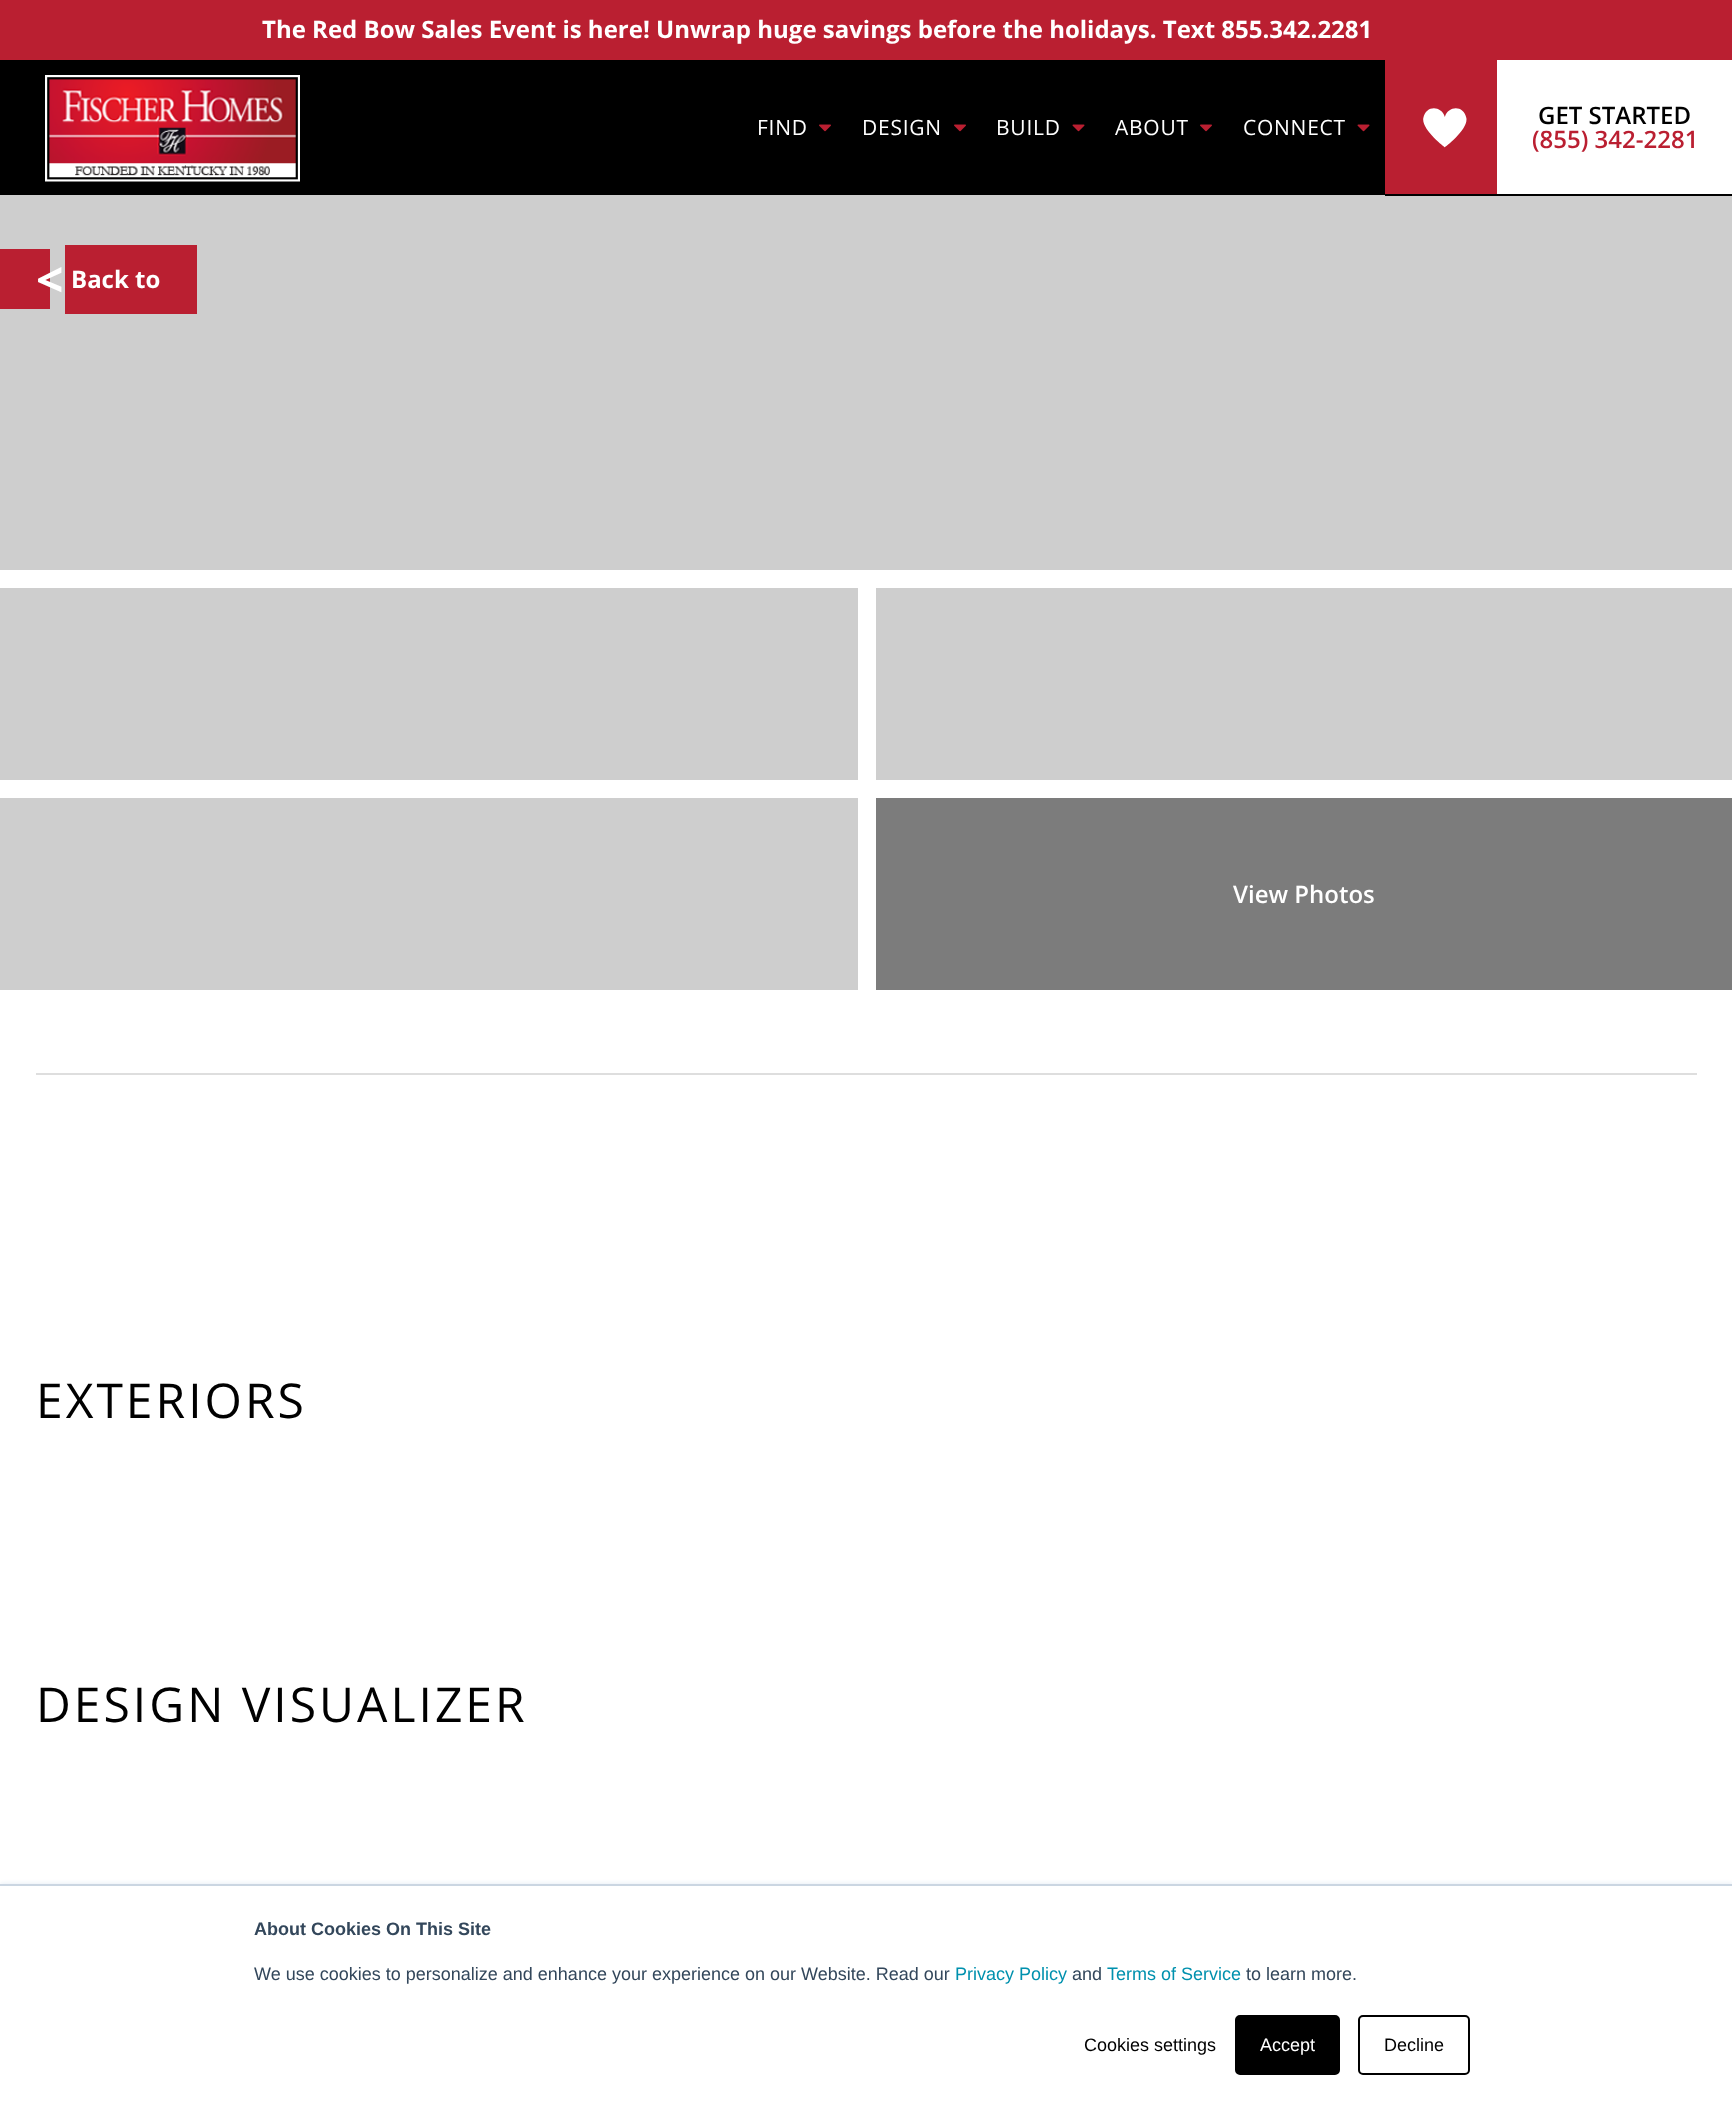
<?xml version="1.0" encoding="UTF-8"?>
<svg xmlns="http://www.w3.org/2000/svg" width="1732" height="2113">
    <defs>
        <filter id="blur1" x="-50%" y="-200%" width="200%" height="500%"><feGaussianBlur stdDeviation="2"/></filter>
    </defs>
    <rect width="100%" height="100%" fill="#FFFFFF"/>
    <rect x="0" y="0" width="1732" height="60" fill="#BA1F31"/>
    <text x="262" y="38" font-family="Open Sans" font-size="24" font-weight="700" fill="#FFFFFF">The Red Bow Sales Event is here! Unwrap huge savings before the holidays. Text 855.342.2281</text>
    <rect x="0" y="60" width="1385" height="135" fill="#000000"/>
    <image x="45" y="75" width="255" height="107" href="img_01.png"/>
    <rect x="1385" y="60" width="112" height="134" fill="#BA1F31"/>
    <rect x="0" y="195" width="1732" height="375" fill="#CECECE"/>
    <rect x="1385" y="194" width="347" height="2" fill="#000000"/>
    <image x="1423" y="108" width="44" height="40" href="img_02.png"/>
    <text x="757" y="135" font-family="Open Sans" font-size="21" letter-spacing="0.75" fill="#FFFFFF">FIND</text>
    <image x="819" y="124" width="12" height="8" href="img_03.png"/>
    <text x="862" y="135" font-family="Open Sans" font-size="21" letter-spacing="0.75" fill="#FFFFFF">DESIGN</text>
    <image x="954" y="124" width="12" height="8" href="img_03.png"/>
    <text x="996" y="135" font-family="Open Sans" font-size="21" letter-spacing="0.75" fill="#FFFFFF">BUILD</text>
    <image x="1072" y="124" width="13" height="8" href="img_04.png"/>
    <text x="1115" y="135" font-family="Open Sans" font-size="21" letter-spacing="0.75" fill="#FFFFFF">ABOUT</text>
    <image x="1200" y="124" width="12" height="8" href="img_03.png"/>
    <text x="1243" y="135" font-family="Open Sans" font-size="21" letter-spacing="0.75" fill="#FFFFFF">CONNECT</text>
    <image x="1357" y="124" width="13" height="8" href="img_04.png"/>
    <text x="1538" y="124" font-family="Open Sans" font-size="24" font-weight="600" fill="#000000">GET STARTED</text>
    <text x="1532" y="148" font-family="Open Sans" font-size="24" font-weight="600" fill="#BA1F31">(855) 342-2281</text>
    <rect x="0" y="249" width="50" height="60" fill="#BA1F31"/>
    <rect x="65" y="245" width="132" height="69" fill="#BA1F31"/>
    <text x="36" y="297" font-family="Open Sans" font-size="48" font-weight="700" letter-spacing="-14" fill="#FFFFFF">&lt;</text>
    <text x="71" y="288" font-family="Open Sans" font-size="24" font-weight="700" fill="#FFFFFF">Back to</text>
    <rect x="0" y="588" width="858" height="192" fill="#CECECE"/>
    <rect x="876" y="588" width="856" height="192" fill="#CECECE"/>
    <rect x="0" y="798" width="858" height="192" fill="#CECECE"/>
    <rect x="876" y="798" width="856" height="192" fill="#7C7C7C"/>
    <text x="1233" y="903" font-family="Open Sans" font-size="24" font-weight="600" fill="#FFFFFF">View Photos</text>
    <rect x="36" y="1073" width="1661" height="2" fill="#DEDEDE"/>
    <text x="36" y="1418" font-family="Open Sans" font-size="48" letter-spacing="3" fill="#000000">EXTERIORS</text>
    <text x="36" y="1722" font-family="Open Sans" font-size="48" letter-spacing="3" fill="#000000">DESIGN VISUALIZER</text>
    <rect x="0" y="1883" width="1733" height="229" fill="#EAF0F6" filter="url(#blur1)"/>
    <rect x="0" y="1886" width="1732" height="227" fill="#FFFFFF"/>
    <rect x="0" y="1884" width="1732" height="2" fill="#CBD6E2"/>
    <text x="254" y="1935" font-family="Liberation Sans" font-size="18" font-weight="700" fill="#33475B">About Cookies On This Site</text>
    <text x="254" y="1980" font-family="Liberation Sans" font-size="18" fill="#33475B">We use cookies to personalize and enhance your experience on our Website. Read our</text>
    <text x="955" y="1980" font-family="Liberation Sans" font-size="18" fill="#0091AE">Privacy Policy</text>
    <text x="1072" y="1980" font-family="Liberation Sans" font-size="18" fill="#33475B">and</text>
    <text x="1107" y="1980" font-family="Liberation Sans" font-size="18" fill="#0091AE">Terms of Service</text>
    <text x="1246" y="1980" font-family="Liberation Sans" font-size="18" fill="#33475B">to learn more.</text>
    <text x="1084" y="2051" font-family="Liberation Sans" font-size="18" fill="#000000">Cookies settings</text>
    <rect x="1236" y="2016" width="103" height="58" rx="4" fill="#000000" stroke="#000000" stroke-width="2"/>
    <text x="1260" y="2051" font-family="Liberation Sans" font-size="18" fill="#FFFFFF">Accept</text>
    <rect x="1359" y="2016" width="110" height="58" rx="4" fill="none" stroke="#000000" stroke-width="2"/>
    <text x="1384" y="2051" font-family="Liberation Sans" font-size="18" fill="#000000">Decline</text>
</svg>
